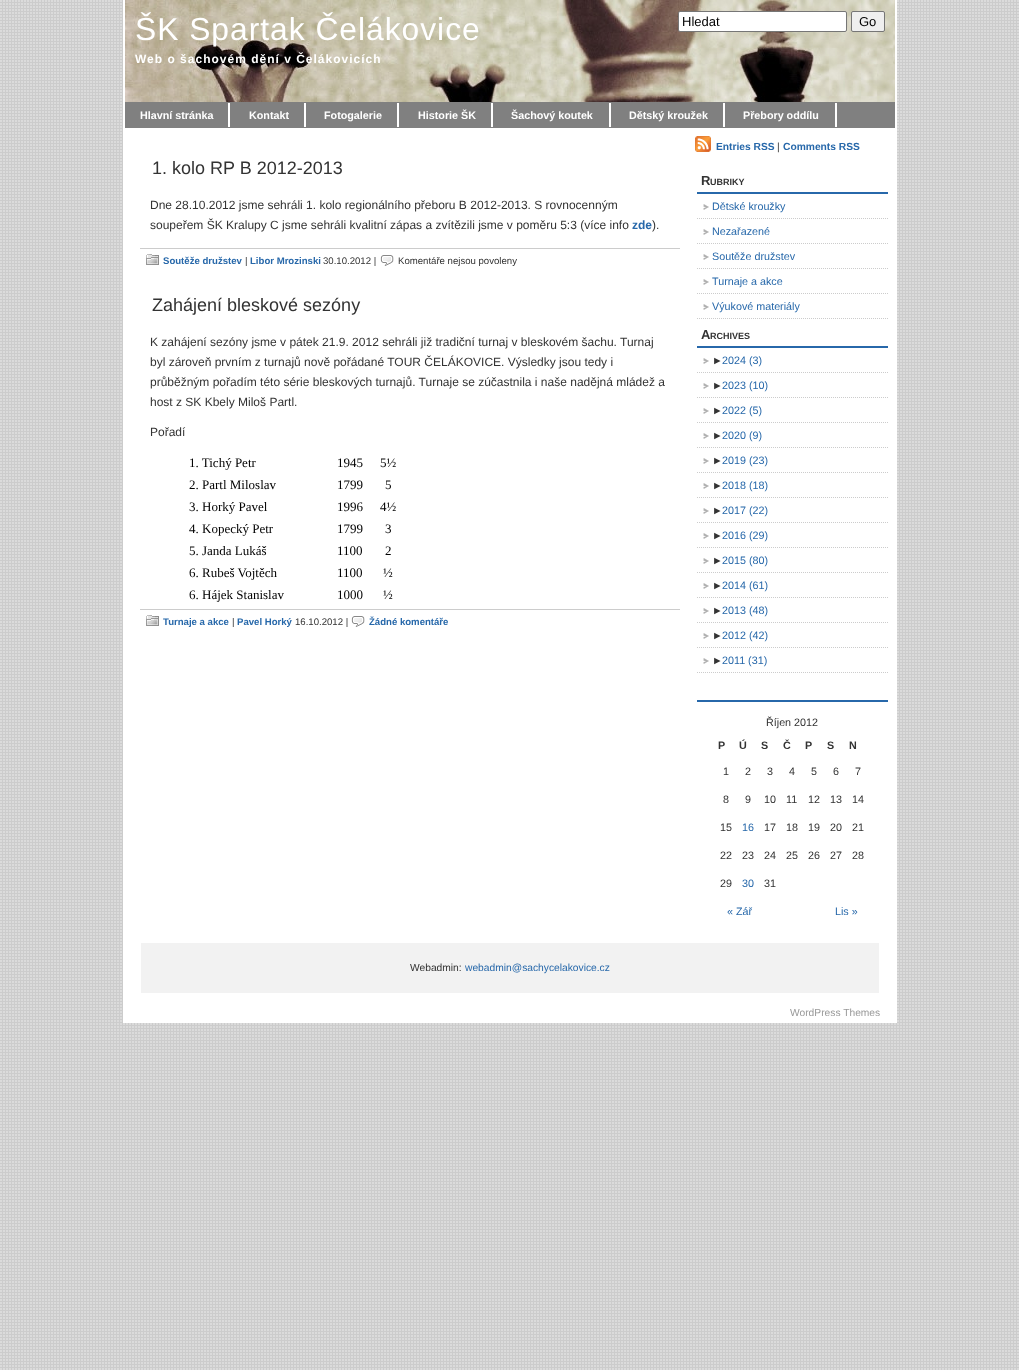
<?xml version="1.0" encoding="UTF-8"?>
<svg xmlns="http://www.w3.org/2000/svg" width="1019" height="1370">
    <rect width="100%" height="100%" fill="#FFFFFF"/>
    <image x="0" y="0" width="1019" height="1370" href="img_01.png"/>
    <rect x="123" y="0" width="774" height="1023" fill="#FFFFFF"/>
    <image x="125" y="0" width="770" height="102" href="img_02.png"/>
    <text x="135" y="40" font-family="Liberation Sans" font-size="31.75" letter-spacing="1" fill="#FFFFFF">ŠK Spartak Čelákovice</text>
    <rect x="678.5" y="11.5" width="168" height="20" rx="1.5" fill="#FFFFFF" stroke="#767676"/>
    <text x="682" y="26" font-family="Liberation Sans" font-size="13" fill="#000000">Hledat</text>
    <rect x="851.5" y="11.5" width="33" height="20" rx="1.5" fill="#EFEFEF" stroke="#767676"/>
    <text x="859" y="26" font-family="Liberation Sans" font-size="13" fill="#000000">Go</text>
    <text x="135" y="63" font-family="Liberation Sans" font-size="12" font-weight="700" letter-spacing="1" fill="#FFFFFF">Web o šachovém dění v Čelákovicích</text>
    <rect x="125" y="102" width="770" height="26" fill="#808080"/>
    <text x="140" y="119" font-family="Liberation Sans" font-size="10.75" font-weight="700" fill="#FFFFFF">Hlavní stránka</text>
    <rect x="228" y="103" width="2" height="24" fill="#FFFFFF"/>
    <text x="249" y="119" font-family="Liberation Sans" font-size="10.75" font-weight="700" fill="#FFFFFF">Kontakt</text>
    <rect x="304" y="103" width="2" height="24" fill="#FFFFFF"/>
    <text x="324" y="119" font-family="Liberation Sans" font-size="10.75" font-weight="700" fill="#FFFFFF">Fotogalerie</text>
    <rect x="397" y="103" width="2" height="24" fill="#FFFFFF"/>
    <text x="418" y="119" font-family="Liberation Sans" font-size="10.75" font-weight="700" fill="#FFFFFF">Historie ŠK</text>
    <rect x="491" y="103" width="2" height="24" fill="#FFFFFF"/>
    <text x="511" y="119" font-family="Liberation Sans" font-size="10.75" font-weight="700" fill="#FFFFFF">Šachový koutek</text>
    <rect x="609" y="103" width="2" height="24" fill="#FFFFFF"/>
    <text x="629" y="119" font-family="Liberation Sans" font-size="10.75" font-weight="700" fill="#FFFFFF">Dětský kroužek</text>
    <rect x="723" y="103" width="2" height="24" fill="#FFFFFF"/>
    <text x="743" y="119" font-family="Liberation Sans" font-size="10.75" font-weight="700" fill="#FFFFFF">Přebory oddílu</text>
    <rect x="835" y="103" width="2" height="24" fill="#FFFFFF"/>
    <text x="152" y="174" font-family="Liberation Sans" font-size="18" fill="#333333">1. kolo RP B 2012-2013</text>
    <text font-family="Liberation Sans" font-size="12" fill="#333333">
        <tspan x="150" y="209">Dne 28.10.2012 jsme sehráli 1. kolo regionálního přeboru B 2012-2013. S rovnocenným</tspan>
        <tspan x="150" y="229">soupeřem ŠK Kralupy C jsme sehráli kvalitní zápas a zvítězili jsme v poměru 5:3 (více info</tspan>
    </text>
    <text x="632" y="229" font-family="Liberation Sans" font-size="12" font-weight="700" fill="#2768AA">zde</text>
    <text x="652" y="229" font-family="Liberation Sans" font-size="12" fill="#333333">).</text>
    <rect x="140" y="248" width="540" height="1" fill="#CCCCCC"/>
    <image x="146" y="254" width="13" height="11" href="img_03.png"/>
    <text x="163" y="264" font-family="Liberation Sans" font-size="9.6" font-weight="700" fill="#2768AA">Soutěže družstev</text>
    <text x="245" y="264" font-family="Liberation Sans" font-size="9.6" fill="#333333">|</text>
    <text x="250" y="264" font-family="Liberation Sans" font-size="9.6" font-weight="700" fill="#2768AA">Libor Mrozinski</text>
    <text x="323" y="264" font-family="Liberation Sans" font-size="9.6" fill="#333333">30.10.2012 |</text>
    <image x="380" y="255" width="14" height="11" href="img_04.png"/>
    <text x="398" y="264" font-family="Liberation Sans" font-size="9.6" fill="#333333">Komentáře nejsou povoleny</text>
    <text x="152" y="311" font-family="Liberation Sans" font-size="18" fill="#333333">Zahájení bleskové sezóny</text>
    <text font-family="Liberation Sans" font-size="12" fill="#333333">
        <tspan x="150" y="346">K zahájení sezóny jsme v pátek 21.9. 2012 sehráli již tradiční turnaj v bleskovém šachu. Turnaj</tspan>
        <tspan x="150" y="366">byl zároveň prvním z turnajů nově pořádané TOUR ČELÁKOVICE. Výsledky jsou tedy i</tspan>
        <tspan x="150" y="386">průběžným pořadím této série bleskových turnajů. Turnaje se zúčastnila i naše nadějná mládež a</tspan>
        <tspan x="150" y="406">host z SK Kbely Miloš Partl.</tspan>
    </text>
    <text x="150" y="436" font-family="Liberation Sans" font-size="12" fill="#333333">Pořadí</text>
    <text x="189" y="467" font-family="Liberation Serif" font-size="13" fill="#000000">1. Tichý Petr</text>
    <text x="337" y="467" font-family="Liberation Serif" font-size="13" fill="#000000">1945</text>
    <text x="380" y="467" font-family="Liberation Serif" font-size="13" fill="#000000">5½</text>
    <text x="189" y="489" font-family="Liberation Serif" font-size="13" fill="#000000">2. Partl Miloslav</text>
    <text x="337" y="489" font-family="Liberation Serif" font-size="13" fill="#000000">1799</text>
    <text x="385" y="489" font-family="Liberation Serif" font-size="13" fill="#000000">5</text>
    <text x="189" y="511" font-family="Liberation Serif" font-size="13" fill="#000000">3. Horký Pavel</text>
    <text x="337" y="511" font-family="Liberation Serif" font-size="13" fill="#000000">1996</text>
    <text x="380" y="511" font-family="Liberation Serif" font-size="13" fill="#000000">4½</text>
    <text x="189" y="533" font-family="Liberation Serif" font-size="13" fill="#000000">4. Kopecký Petr</text>
    <text x="337" y="533" font-family="Liberation Serif" font-size="13" fill="#000000">1799</text>
    <text x="385" y="533" font-family="Liberation Serif" font-size="13" fill="#000000">3</text>
    <text x="189" y="555" font-family="Liberation Serif" font-size="13" fill="#000000">5. Janda Lukáš</text>
    <text x="337" y="555" font-family="Liberation Serif" font-size="13" fill="#000000">1100</text>
    <text x="385" y="555" font-family="Liberation Serif" font-size="13" fill="#000000">2</text>
    <text x="189" y="577" font-family="Liberation Serif" font-size="13" fill="#000000">6. Rubeš Vojtěch</text>
    <text x="337" y="577" font-family="Liberation Serif" font-size="13" fill="#000000">1100</text>
    <text x="383" y="577" font-family="Liberation Serif" font-size="13" fill="#000000">½</text>
    <text x="189" y="599" font-family="Liberation Serif" font-size="13" fill="#000000">6. Hájek Stanislav</text>
    <text x="337" y="599" font-family="Liberation Serif" font-size="13" fill="#000000">1000</text>
    <text x="383" y="599" font-family="Liberation Serif" font-size="13" fill="#000000">½</text>
    <rect x="140" y="609" width="540" height="1" fill="#CCCCCC"/>
    <image x="146" y="615" width="13" height="11" href="img_03.png"/>
    <text x="163" y="625" font-family="Liberation Sans" font-size="9.6" font-weight="700" fill="#2768AA">Turnaje a akce</text>
    <text x="232" y="625" font-family="Liberation Sans" font-size="9.6" fill="#333333">|</text>
    <text x="237" y="625" font-family="Liberation Sans" font-size="9.6" font-weight="700" fill="#2768AA">Pavel Horký</text>
    <text x="295" y="625" font-family="Liberation Sans" font-size="9.6" fill="#333333">16.10.2012 |</text>
    <image x="351" y="616" width="14" height="11" href="img_04.png"/>
    <text x="369" y="625" font-family="Liberation Sans" font-size="9.6" font-weight="700" fill="#2768AA">Žádné komentáře</text>
    <image x="695" y="136" width="16" height="16" href="img_05.png"/>
    <text x="716" y="150" font-family="Liberation Sans" font-size="10.25" font-weight="700" fill="#2768AA">Entries RSS</text>
    <text x="777" y="150" font-family="Liberation Sans" font-size="10.25" fill="#333333">|</text>
    <text x="783" y="150" font-family="Liberation Sans" font-size="10.25" font-weight="700" fill="#2768AA">Comments RSS</text>
    <rect x="697" y="192" width="191" height="2" fill="#2768AA"/>
    <text x="701" y="185" font-family="Liberation Sans" font-size="13" font-weight="700" fill="#333333">R</text>
    <text x="710" y="185" font-family="Liberation Sans" font-size="9" font-weight="700" fill="#333333">UBRIKY</text>
    <image x="703" y="204" width="6" height="6" href="img_06.png"/>
    <path d="M 697 218.5 H 888" fill="none" stroke="#CCCCCC" stroke-dasharray="1 1"/>
    <text x="712" y="210" font-family="Liberation Sans" font-size="10.75" fill="#2768AA">Dětské kroužky</text>
    <image x="703" y="229" width="6" height="6" href="img_06.png"/>
    <path d="M 697 243.5 H 888" fill="none" stroke="#CCCCCC" stroke-dasharray="1 1"/>
    <text x="712" y="235" font-family="Liberation Sans" font-size="10.75" fill="#2768AA">Nezařazené</text>
    <image x="703" y="254" width="6" height="6" href="img_06.png"/>
    <path d="M 697 268.5 H 888" fill="none" stroke="#CCCCCC" stroke-dasharray="1 1"/>
    <text x="712" y="260" font-family="Liberation Sans" font-size="10.75" fill="#2768AA">Soutěže družstev</text>
    <image x="703" y="279" width="6" height="6" href="img_06.png"/>
    <path d="M 697 293.5 H 888" fill="none" stroke="#CCCCCC" stroke-dasharray="1 1"/>
    <text x="712" y="285" font-family="Liberation Sans" font-size="10.75" fill="#2768AA">Turnaje a akce</text>
    <image x="703" y="304" width="6" height="6" href="img_06.png"/>
    <path d="M 697 318.5 H 888" fill="none" stroke="#CCCCCC" stroke-dasharray="1 1"/>
    <text x="712" y="310" font-family="Liberation Sans" font-size="10.75" fill="#2768AA">Výukové materiály</text>
    <rect x="697" y="346" width="191" height="2" fill="#2768AA"/>
    <text x="701" y="339" font-family="Liberation Sans" font-size="13" font-weight="700" fill="#333333">A</text>
    <text x="710" y="339" font-family="Liberation Sans" font-size="9" font-weight="700" fill="#333333">RCHIVES</text>
    <image x="703" y="358" width="6" height="6" href="img_06.png"/>
    <path d="M 697 372.5 H 888" fill="none" stroke="#CCCCCC" stroke-dasharray="1 1"/>
    <text x="712" y="364" font-family="Liberation Sans" font-size="10.75" fill="#333333">►</text>
    <text x="722" y="364" font-family="Liberation Sans" font-size="10.75" fill="#2768AA">2024 (3)</text>
    <image x="703" y="383" width="6" height="6" href="img_06.png"/>
    <path d="M 697 397.5 H 888" fill="none" stroke="#CCCCCC" stroke-dasharray="1 1"/>
    <text x="712" y="389" font-family="Liberation Sans" font-size="10.75" fill="#333333">►</text>
    <text x="722" y="389" font-family="Liberation Sans" font-size="10.75" fill="#2768AA">2023 (10)</text>
    <image x="703" y="408" width="6" height="6" href="img_06.png"/>
    <path d="M 697 422.5 H 888" fill="none" stroke="#CCCCCC" stroke-dasharray="1 1"/>
    <text x="712" y="414" font-family="Liberation Sans" font-size="10.75" fill="#333333">►</text>
    <text x="722" y="414" font-family="Liberation Sans" font-size="10.75" fill="#2768AA">2022 (5)</text>
    <image x="703" y="433" width="6" height="6" href="img_06.png"/>
    <path d="M 697 447.5 H 888" fill="none" stroke="#CCCCCC" stroke-dasharray="1 1"/>
    <text x="712" y="439" font-family="Liberation Sans" font-size="10.75" fill="#333333">►</text>
    <text x="722" y="439" font-family="Liberation Sans" font-size="10.75" fill="#2768AA">2020 (9)</text>
    <image x="703" y="458" width="6" height="6" href="img_06.png"/>
    <path d="M 697 472.5 H 888" fill="none" stroke="#CCCCCC" stroke-dasharray="1 1"/>
    <text x="712" y="464" font-family="Liberation Sans" font-size="10.75" fill="#333333">►</text>
    <text x="722" y="464" font-family="Liberation Sans" font-size="10.75" fill="#2768AA">2019 (23)</text>
    <image x="703" y="483" width="6" height="6" href="img_06.png"/>
    <path d="M 697 497.5 H 888" fill="none" stroke="#CCCCCC" stroke-dasharray="1 1"/>
    <text x="712" y="489" font-family="Liberation Sans" font-size="10.75" fill="#333333">►</text>
    <text x="722" y="489" font-family="Liberation Sans" font-size="10.75" fill="#2768AA">2018 (18)</text>
    <image x="703" y="508" width="6" height="6" href="img_06.png"/>
    <path d="M 697 522.5 H 888" fill="none" stroke="#CCCCCC" stroke-dasharray="1 1"/>
    <text x="712" y="514" font-family="Liberation Sans" font-size="10.75" fill="#333333">►</text>
    <text x="722" y="514" font-family="Liberation Sans" font-size="10.75" fill="#2768AA">2017 (22)</text>
    <image x="703" y="533" width="6" height="6" href="img_06.png"/>
    <path d="M 697 547.5 H 888" fill="none" stroke="#CCCCCC" stroke-dasharray="1 1"/>
    <text x="712" y="539" font-family="Liberation Sans" font-size="10.75" fill="#333333">►</text>
    <text x="722" y="539" font-family="Liberation Sans" font-size="10.75" fill="#2768AA">2016 (29)</text>
    <image x="703" y="558" width="6" height="6" href="img_06.png"/>
    <path d="M 697 572.5 H 888" fill="none" stroke="#CCCCCC" stroke-dasharray="1 1"/>
    <text x="712" y="564" font-family="Liberation Sans" font-size="10.75" fill="#333333">►</text>
    <text x="722" y="564" font-family="Liberation Sans" font-size="10.75" fill="#2768AA">2015 (80)</text>
    <image x="703" y="583" width="6" height="6" href="img_06.png"/>
    <path d="M 697 597.5 H 888" fill="none" stroke="#CCCCCC" stroke-dasharray="1 1"/>
    <text x="712" y="589" font-family="Liberation Sans" font-size="10.75" fill="#333333">►</text>
    <text x="722" y="589" font-family="Liberation Sans" font-size="10.75" fill="#2768AA">2014 (61)</text>
    <image x="703" y="608" width="6" height="6" href="img_06.png"/>
    <path d="M 697 622.5 H 888" fill="none" stroke="#CCCCCC" stroke-dasharray="1 1"/>
    <text x="712" y="614" font-family="Liberation Sans" font-size="10.75" fill="#333333">►</text>
    <text x="722" y="614" font-family="Liberation Sans" font-size="10.75" fill="#2768AA">2013 (48)</text>
    <image x="703" y="633" width="6" height="6" href="img_06.png"/>
    <path d="M 697 647.5 H 888" fill="none" stroke="#CCCCCC" stroke-dasharray="1 1"/>
    <text x="712" y="639" font-family="Liberation Sans" font-size="10.75" fill="#333333">►</text>
    <text x="722" y="639" font-family="Liberation Sans" font-size="10.75" fill="#2768AA">2012 (42)</text>
    <image x="703" y="658" width="6" height="6" href="img_06.png"/>
    <path d="M 697 672.5 H 888" fill="none" stroke="#CCCCCC" stroke-dasharray="1 1"/>
    <text x="712" y="664" font-family="Liberation Sans" font-size="10.75" fill="#333333">►</text>
    <text x="722" y="664" font-family="Liberation Sans" font-size="10.75" fill="#2768AA">2011 (31)</text>
    <rect x="697" y="700" width="191" height="2" fill="#2768AA"/>
    <text x="766" y="726" font-family="Liberation Sans" font-size="10.75" fill="#333333">Říjen 2012</text>
    <text x="718" y="749" font-family="Liberation Sans" font-size="10.75" font-weight="700" fill="#333333">P</text>
    <text x="739" y="749" font-family="Liberation Sans" font-size="10.75" font-weight="700" fill="#333333">Ú</text>
    <text x="761" y="749" font-family="Liberation Sans" font-size="10.75" font-weight="700" fill="#333333">S</text>
    <text x="783" y="749" font-family="Liberation Sans" font-size="10.75" font-weight="700" fill="#333333">Č</text>
    <text x="805" y="749" font-family="Liberation Sans" font-size="10.75" font-weight="700" fill="#333333">P</text>
    <text x="827" y="749" font-family="Liberation Sans" font-size="10.75" font-weight="700" fill="#333333">S</text>
    <text x="849" y="749" font-family="Liberation Sans" font-size="10.75" font-weight="700" fill="#333333">N</text>
    <text x="723" y="775" font-family="Liberation Sans" font-size="10.75" fill="#333333">1</text>
    <text x="745" y="775" font-family="Liberation Sans" font-size="10.75" fill="#333333">2</text>
    <text x="767" y="775" font-family="Liberation Sans" font-size="10.75" fill="#333333">3</text>
    <text x="789" y="775" font-family="Liberation Sans" font-size="10.75" fill="#333333">4</text>
    <text x="811" y="775" font-family="Liberation Sans" font-size="10.75" fill="#333333">5</text>
    <text x="833" y="775" font-family="Liberation Sans" font-size="10.75" fill="#333333">6</text>
    <text x="855" y="775" font-family="Liberation Sans" font-size="10.75" fill="#333333">7</text>
    <text x="723" y="803" font-family="Liberation Sans" font-size="10.75" fill="#333333">8</text>
    <text x="745" y="803" font-family="Liberation Sans" font-size="10.75" fill="#333333">9</text>
    <text x="764" y="803" font-family="Liberation Sans" font-size="10.75" fill="#333333">10</text>
    <text x="786" y="803" font-family="Liberation Sans" font-size="10.75" fill="#333333">11</text>
    <text x="808" y="803" font-family="Liberation Sans" font-size="10.75" fill="#333333">12</text>
    <text x="830" y="803" font-family="Liberation Sans" font-size="10.75" fill="#333333">13</text>
    <text x="852" y="803" font-family="Liberation Sans" font-size="10.75" fill="#333333">14</text>
    <text x="720" y="831" font-family="Liberation Sans" font-size="10.75" fill="#333333">15</text>
    <text x="742" y="831" font-family="Liberation Sans" font-size="10.75" fill="#2768AA">16</text>
    <text x="764" y="831" font-family="Liberation Sans" font-size="10.75" fill="#333333">17</text>
    <text x="786" y="831" font-family="Liberation Sans" font-size="10.75" fill="#333333">18</text>
    <text x="808" y="831" font-family="Liberation Sans" font-size="10.75" fill="#333333">19</text>
    <text x="830" y="831" font-family="Liberation Sans" font-size="10.75" fill="#333333">20</text>
    <text x="852" y="831" font-family="Liberation Sans" font-size="10.75" fill="#333333">21</text>
    <text x="720" y="859" font-family="Liberation Sans" font-size="10.75" fill="#333333">22</text>
    <text x="742" y="859" font-family="Liberation Sans" font-size="10.75" fill="#333333">23</text>
    <text x="764" y="859" font-family="Liberation Sans" font-size="10.75" fill="#333333">24</text>
    <text x="786" y="859" font-family="Liberation Sans" font-size="10.75" fill="#333333">25</text>
    <text x="808" y="859" font-family="Liberation Sans" font-size="10.75" fill="#333333">26</text>
    <text x="830" y="859" font-family="Liberation Sans" font-size="10.75" fill="#333333">27</text>
    <text x="852" y="859" font-family="Liberation Sans" font-size="10.75" fill="#333333">28</text>
    <text x="720" y="887" font-family="Liberation Sans" font-size="10.75" fill="#333333">29</text>
    <text x="742" y="887" font-family="Liberation Sans" font-size="10.75" fill="#2768AA">30</text>
    <text x="764" y="887" font-family="Liberation Sans" font-size="10.75" fill="#333333">31</text>
    <text x="727" y="915" font-family="Liberation Sans" font-size="10.75" fill="#2768AA">« Zář</text>
    <text x="835" y="915" font-family="Liberation Sans" font-size="10.75" fill="#2768AA">Lis »</text>
    <rect x="141" y="943" width="738" height="50" fill="#F2F2F2"/>
    <text x="410" y="971" font-family="Liberation Sans" font-size="10.25" fill="#333333">Webadmin:</text>
    <text x="465" y="971" font-family="Liberation Sans" font-size="10.25" fill="#2768AA">webadmin@sachycelakovice.cz</text>
    <text x="790" y="1016" font-family="Liberation Sans" font-size="10.25" fill="#999999">WordPress Themes</text>
</svg>
